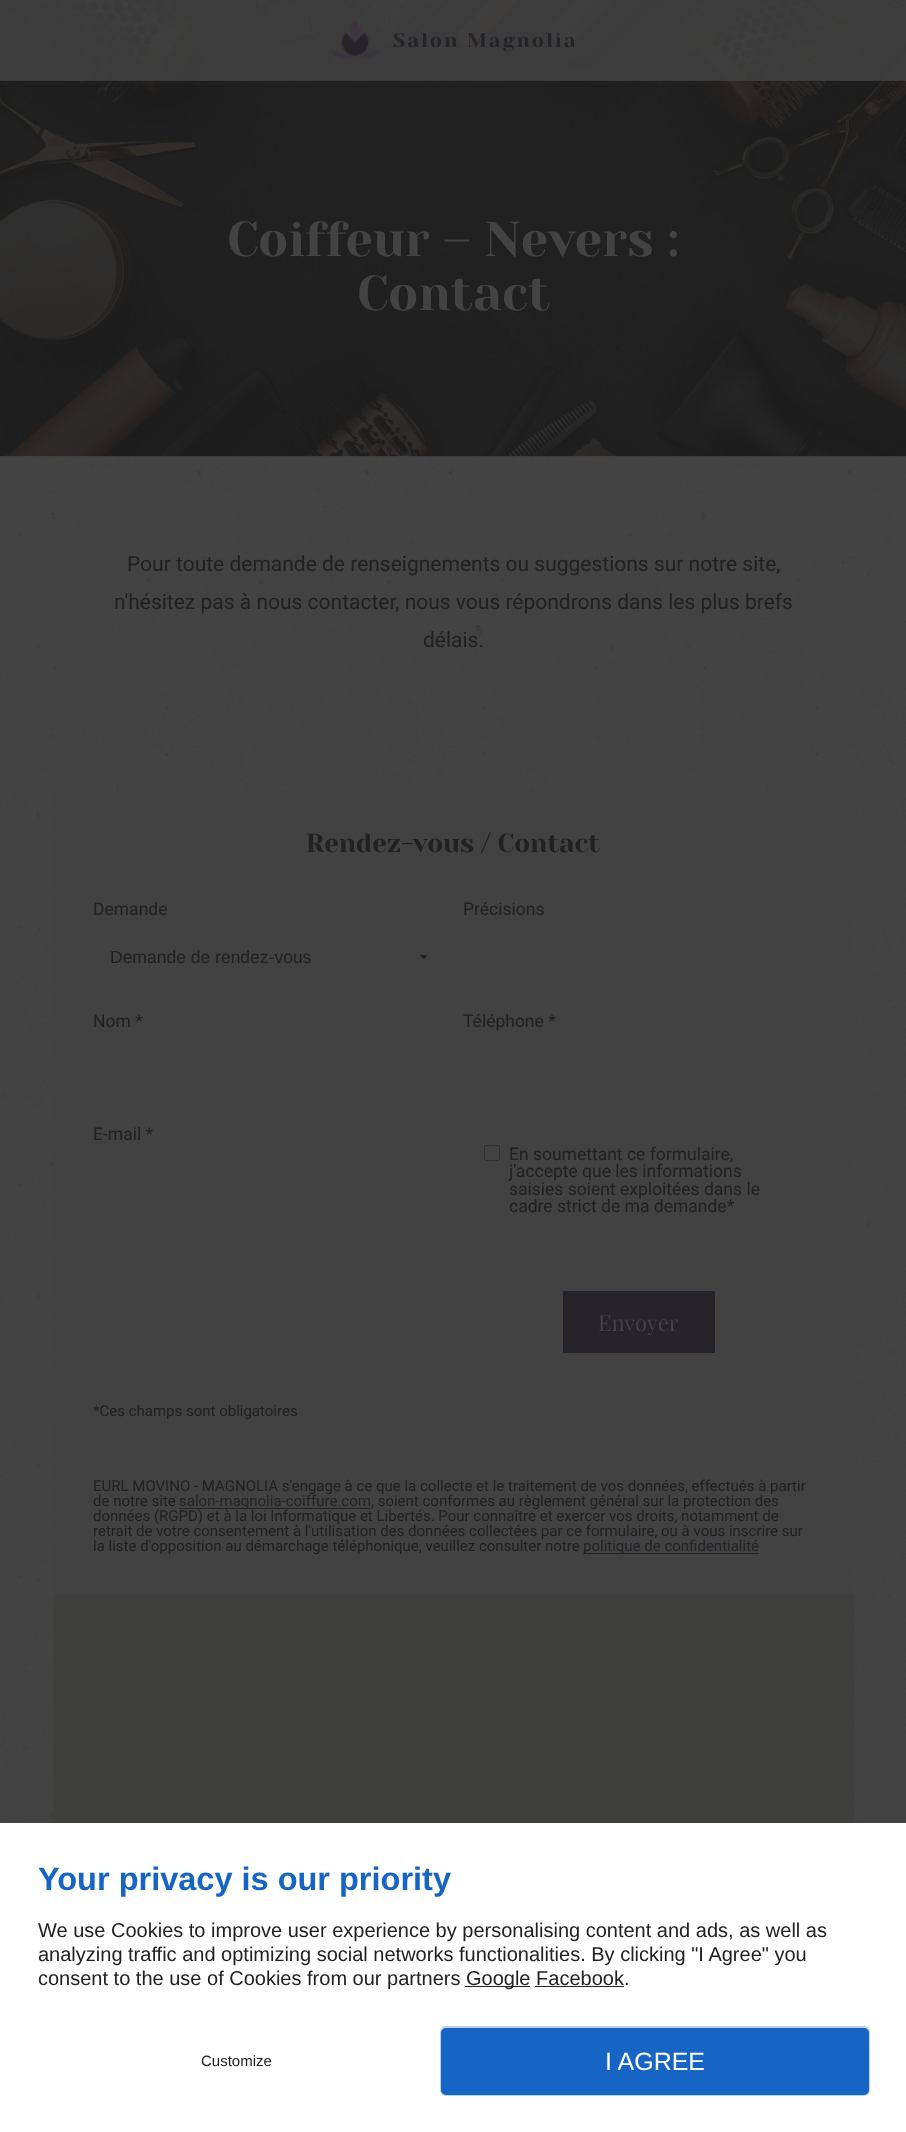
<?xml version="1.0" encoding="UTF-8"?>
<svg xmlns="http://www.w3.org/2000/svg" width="906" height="2132">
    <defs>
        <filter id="blur1" x="-50%" y="-200%" width="200%" height="500%"><feGaussianBlur stdDeviation="0.5"/></filter>
    </defs>
    <rect width="100%" height="100%" fill="#434343"/>
    <rect x="0" y="0" width="906" height="456" fill="#1D1D1D"/>
    <image x="0" y="0" width="906" height="457" href="img_01.png"/>
    <rect x="0" y="0" width="906" height="81" fill="#434343" fill-opacity="0.8"/>
    <image x="329" y="20" width="53" height="40" href="img_02.png"/>
    <text x="393" y="47" font-family="Yeseva One" font-size="20" letter-spacing="2" fill="#262329">Salon Magnolia</text>
    <image x="0" y="83" width="906" height="1739" href="img_03.png"/>
    <text x="227" y="256" font-family="Yeseva One" font-size="49" fill="#434343">Coiffeur – Nevers :</text>
    <text x="357" y="310" font-family="Yeseva One" font-size="49" fill="#434343">Contact</text>
    <text x="127" y="571" font-family="Roboto" font-size="21" fill="#212121">Pour toute demande de renseignements ou suggestions sur notre site,</text>
    <text x="114" y="609" font-family="Roboto" font-size="21" fill="#212121">n'hésitez pas à nous contacter, nous vous répondrons dans les plus brefs</text>
    <text x="423" y="647" font-family="Roboto" font-size="21" fill="#212121">délais.</text>
    <rect x="53" y="793" width="801" height="801" fill="#424242"/>
    <text x="306" y="852" font-family="Yeseva One" font-size="26" fill="#212121">Rendez-vous / Contact</text>
    <text x="93" y="915" font-family="Roboto" font-size="17.5" fill="#212121">Demande</text>
    <path d="M 427.5 955 L 423.5 959 L 420 955 Z" fill="#1D1D1D"/>
    <text x="110" y="963" font-family="Liberation Sans" font-size="17.5" fill="#212121">Demande de rendez-vous</text>
    <text x="463" y="915" font-family="Roboto" font-size="17.5" fill="#212121">Précisions</text>
    <text x="93" y="1027" font-family="Roboto" font-size="17.5" fill="#212121">Nom *</text>
    <text x="463" y="1027" font-family="Roboto" font-size="17.5" fill="#212121">Téléphone *</text>
    <text x="93" y="1140" font-family="Roboto" font-size="17.5" fill="#212121">E-mail *</text>
    <rect x="484.5" y="1145.5" width="15" height="15" rx="2" fill="none" stroke="#2F2F2F"/>
    <text font-family="Roboto" font-size="17.5" fill="#212121">
        <tspan x="509" y="1160">En soumettant ce formulaire,</tspan>
        <tspan x="509" y="1177">j'accepte que les informations</tspan>
        <tspan x="509" y="1195">saisies soient exploitées dans le</tspan>
        <tspan x="509" y="1212">cadre strict de ma demande*</tspan>
    </text>
    <rect x="563" y="1291" width="152" height="62" fill="#262329"/>
    <text x="598" y="1331" font-family="Playfair Display" font-size="22" fill="#434343">Envoyer</text>
    <text x="93" y="1416" font-family="Roboto" font-size="15" fill="#212121">*Ces champs sont obligatoires</text>
    <text font-family="Roboto" font-size="15" fill="#212121">
        <tspan x="93" y="1491">EURL MOVINO - MAGNOLIA s'engage à ce que la collecte et le traitement de vos données, effectués à partir</tspan>
        <tspan x="93" y="1506">de notre site</tspan>
    </text>
    <rect x="179" y="1508" width="192" height="1" fill="#262329"/>
    <text x="179" y="1506" font-family="Roboto" font-size="15" fill="#262329">salon-magnolia-coiffure.com</text>
    <text x="371" y="1506" font-family="Roboto" font-size="15" fill="#212121">, soient conformes au règlement général sur la protection des</text>
    <text font-family="Roboto" font-size="15" fill="#212121">
        <tspan x="93" y="1521">données (RGPD) et à la loi Informatique et Libertés. Pour connaître et exercer vos droits, notamment de</tspan>
        <tspan x="93" y="1536">retrait de votre consentement à l'utilisation des données collectées par ce formulaire, ou à vous inscrire sur</tspan>
        <tspan x="93" y="1551">la liste d'opposition au démarchage téléphonique, veuillez consulter notre</tspan>
    </text>
    <rect x="583" y="1553" width="176" height="1" fill="#262329"/>
    <text x="583" y="1551" font-family="Roboto" font-size="15" fill="#262329">politique de confidentialité</text>
    <rect x="53" y="1594" width="801" height="229" fill="#3F3F3E"/>
    <rect x="0" y="1823" width="906" height="309" fill="#FFFFFF"/>
    <text x="38" y="1890" font-family="Liberation Sans" font-size="32.5" font-weight="700" fill="#1665C4">Your privacy is our priority</text>
    <text font-family="Liberation Sans" font-size="20" fill="#212121">
        <tspan x="38" y="1937">We use Cookies to improve user experience by personalising content and ads, as well as</tspan>
        <tspan x="38" y="1961">analyzing traffic and optimizing social networks functionalities. By clicking "I Agree" you</tspan>
        <tspan x="38" y="1985">consent to the use of Cookies from our partners</tspan>
    </text>
    <rect x="465" y="1986" width="65" height="1" fill="#222222"/>
    <text x="466" y="1985" font-family="Liberation Sans" font-size="20" fill="#212121">Google Facebook.</text>
    <rect x="535" y="1986" width="89" height="1" fill="#222222"/>
    <text x="201" y="2066" font-family="Liberation Sans" font-size="15" fill="#212121">Customize</text>
    <rect x="440" y="2026" width="430" height="70" rx="6" fill="#1665C4" fill-opacity="0.3" filter="url(#blur1)"/>
    <rect x="442.5" y="2029.5" width="425" height="64" rx="3.5" fill="#1665C4" stroke="#1665C4" stroke-width="3"/>
    <text x="605" y="2070" font-family="Liberation Sans" font-size="25" fill="#FFFFFF">I AGREE</text>
</svg>
